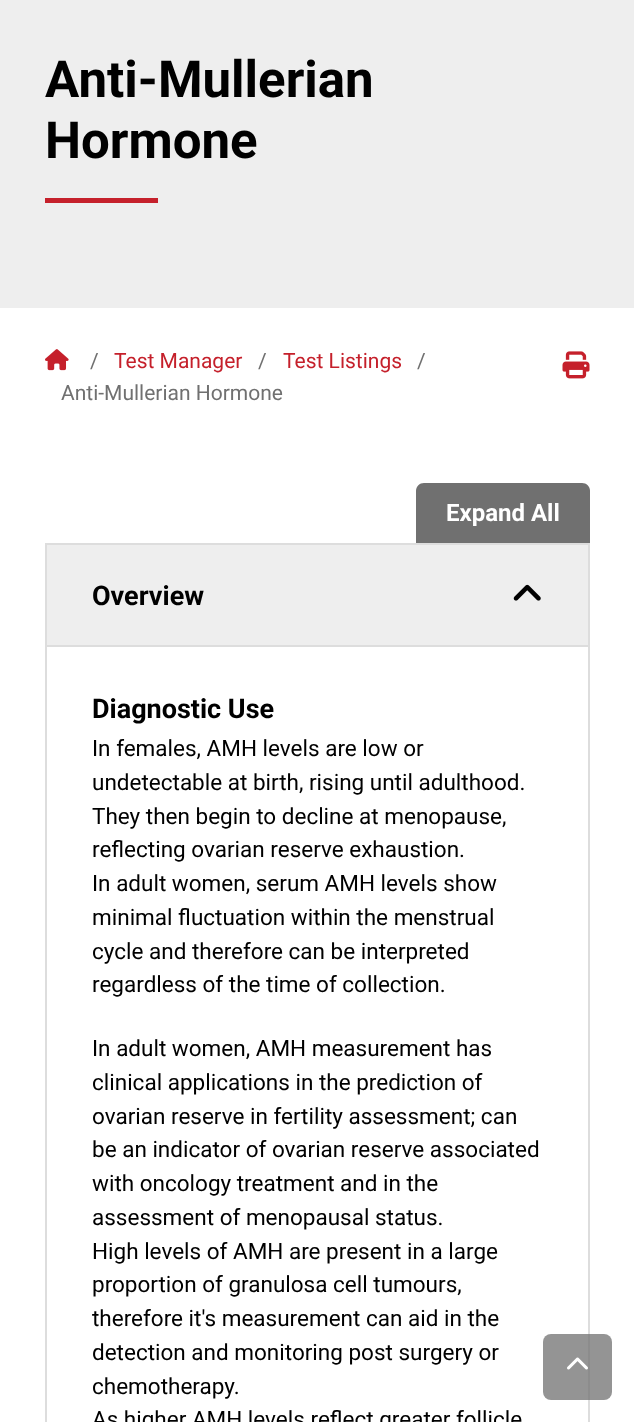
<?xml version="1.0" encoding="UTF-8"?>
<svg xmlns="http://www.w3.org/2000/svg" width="634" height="1422">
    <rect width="100%" height="100%" fill="#FFFFFF"/>
    <rect x="0" y="0" width="634" height="308" fill="#EEEEEE"/>
    <text font-family="Roboto" font-size="51" font-weight="700" fill="#000000">
        <tspan x="45" y="97">Anti-Mullerian</tspan>
        <tspan x="45" y="158">Hormone</tspan>
    </text>
    <rect x="45" y="198" width="113" height="5" fill="#C5202B"/>
    <image x="45" y="349" width="24" height="22" href="img_01.png"/>
    <text x="90" y="368" font-family="Roboto" font-size="21" fill="#707070">/</text>
    <text x="114" y="368" font-family="Roboto" font-size="21" fill="#C5202B">Test Manager</text>
    <text x="258" y="368" font-family="Roboto" font-size="21" fill="#707070">/</text>
    <text x="283" y="368" font-family="Roboto" font-size="21" fill="#C5202B">Test Listings</text>
    <text x="417" y="368" font-family="Roboto" font-size="21" fill="#707070">/</text>
    <text x="61" y="400" font-family="Roboto" font-size="21" fill="#707070">Anti-Mullerian Hormone</text>
    <image x="562" y="351" width="28" height="28" href="img_02.png"/>
    <path d="M 424 483 H 582 C 586.5 483 590 486.5 590 491 V 543 H 416 V 491 C 416 486.5 419.5 483 424 483 Z" fill="#707070"/>
    <text x="446" y="521" font-family="Roboto" font-size="24" font-weight="700" fill="#FFFFFF">Expand All</text>
    <rect x="588" y="543" width="2" height="879" fill="#DDDDDD"/>
    <rect x="45" y="543" width="2" height="879" fill="#DDDDDD"/>
    <rect x="47" y="545" width="541" height="100" fill="#EEEEEE"/>
    <rect x="47" y="543" width="541" height="2" fill="#DDDDDD"/>
    <text x="92" y="605" font-family="Roboto" font-size="27" font-weight="700" fill="#000000">Overview</text>
    <image x="513" y="584" width="28" height="17" href="img_03.png"/>
    <rect x="47" y="645" width="541" height="2" fill="#DDDDDD"/>
    <text x="92" y="718" font-family="Roboto" font-size="27" font-weight="700" fill="#000000">Diagnostic Use</text>
    <text font-family="Roboto" font-size="22.5" fill="#000000">
        <tspan x="92" y="756">In females, AMH levels are low or</tspan>
        <tspan x="92" y="790">undetectable at birth, rising until adulthood.</tspan>
        <tspan x="92" y="824">They then begin to decline at menopause,</tspan>
        <tspan x="92" y="857">reflecting ovarian reserve exhaustion.</tspan>
        <tspan x="92" y="891">In adult women, serum AMH levels show</tspan>
        <tspan x="92" y="925">minimal fluctuation within the menstrual</tspan>
        <tspan x="92" y="959">cycle and therefore can be interpreted</tspan>
        <tspan x="92" y="992">regardless of the time of collection.</tspan>
    </text>
    <text font-family="Roboto" font-size="22.5" fill="#000000">
        <tspan x="92" y="1056">In adult women, AMH measurement has</tspan>
        <tspan x="92" y="1090">clinical applications in the prediction of</tspan>
        <tspan x="92" y="1124">ovarian reserve in fertility assessment; can</tspan>
        <tspan x="92" y="1157">be an indicator of ovarian reserve associated</tspan>
        <tspan x="92" y="1191">with oncology treatment and in the</tspan>
        <tspan x="92" y="1225">assessment of menopausal status.</tspan>
        <tspan x="92" y="1259">High levels of AMH are present in a large</tspan>
        <tspan x="92" y="1292">proportion of granulosa cell tumours,</tspan>
        <tspan x="92" y="1326">therefore it's measurement can aid in the</tspan>
        <tspan x="92" y="1360">detection and monitoring post surgery or</tspan>
        <tspan x="92" y="1394">chemotherapy.</tspan>
        <tspan x="92" y="1427">As higher AMH levels reflect greater follicle</tspan>
    </text>
    <rect x="543" y="1334" width="69" height="66" rx="8" fill="#707070" fill-opacity="0.75"/>
    <image x="567" y="1357" width="21" height="13" href="img_04.png"/>
</svg>
